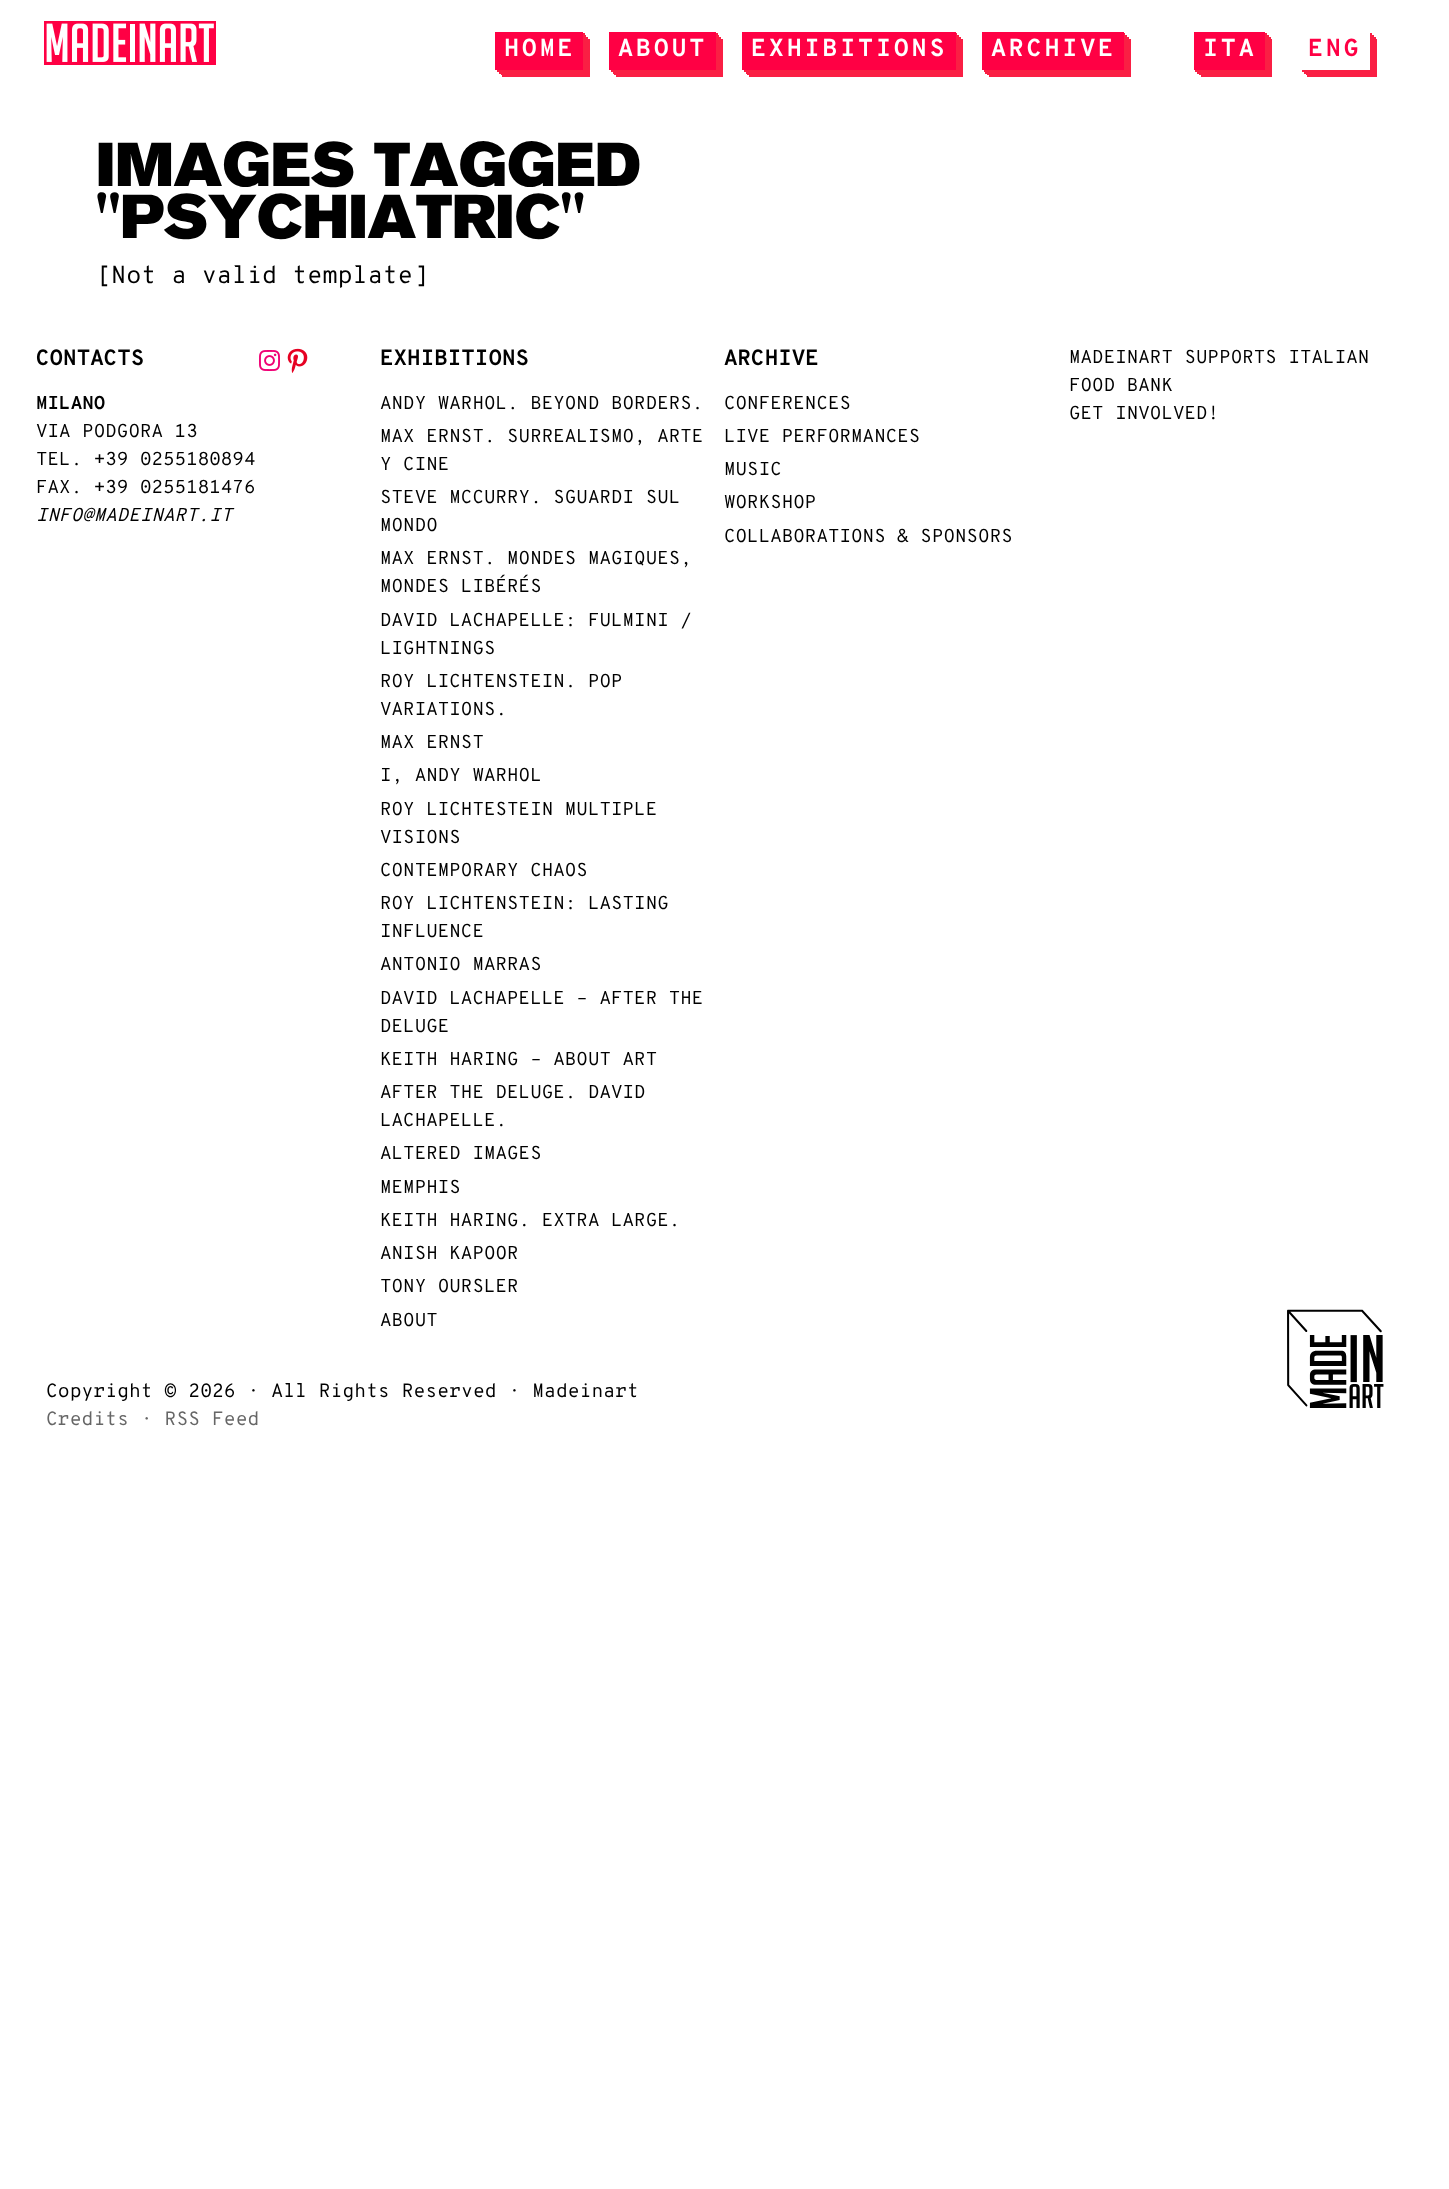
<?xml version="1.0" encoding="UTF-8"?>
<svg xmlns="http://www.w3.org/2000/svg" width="1449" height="2189">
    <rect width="100%" height="100%" fill="#FFFFFF"/>
    <image x="44" y="21" width="172" height="44" href="img_01.png"/>
    <path d="M 502 70 V 77 H 590 V 39 H 583 V 70 Z" fill="#FA1F44"/>
    <path d="M 501 70 V 75 H 588 V 37 H 583 V 70 Z" fill="#FA1F44"/>
    <path d="M 499 70 V 74 H 586 V 35 H 583 V 70 Z" fill="#FA1F44"/>
    <path d="M 497 70 V 72 H 585 V 33 H 583 V 70 Z" fill="#FA1F44"/>
    <rect x="495" y="32" width="88" height="38" fill="#FF0044"/>
    <text x="504" y="56" font-family="Overpass Mono" font-size="24.5" font-weight="700" letter-spacing="2.75" fill="#FFFFFF">HOME</text>
    <path d="M 616 70 V 77 H 723 V 39 H 716 V 70 Z" fill="#FA1F44"/>
    <path d="M 614 70 V 75 H 721 V 37 H 716 V 70 Z" fill="#FA1F44"/>
    <path d="M 613 70 V 74 H 719 V 35 H 716 V 70 Z" fill="#FA1F44"/>
    <path d="M 611 70 V 72 H 718 V 33 H 716 V 70 Z" fill="#FA1F44"/>
    <rect x="609" y="32" width="107" height="38" fill="#FF0044"/>
    <text x="618" y="56" font-family="Overpass Mono" font-size="24.5" font-weight="700" letter-spacing="2.75" fill="#FFFFFF">ABOUT</text>
    <path d="M 749 70 V 77 H 963 V 39 H 956 V 70 Z" fill="#FA1F44"/>
    <path d="M 747 70 V 75 H 961 V 37 H 956 V 70 Z" fill="#FA1F44"/>
    <path d="M 746 70 V 74 H 959 V 35 H 956 V 70 Z" fill="#FA1F44"/>
    <path d="M 744 70 V 72 H 957 V 33 H 956 V 70 Z" fill="#FA1F44"/>
    <rect x="742" y="32" width="214" height="38" fill="#FF0044"/>
    <text x="751" y="56" font-family="Overpass Mono" font-size="24.5" font-weight="700" letter-spacing="2.75" fill="#FFFFFF">EXHIBITIONS</text>
    <path d="M 989 70 V 77 H 1131 V 39 H 1124 V 70 Z" fill="#FA1F44"/>
    <path d="M 987 70 V 75 H 1129 V 37 H 1124 V 70 Z" fill="#FA1F44"/>
    <path d="M 985 70 V 74 H 1127 V 35 H 1124 V 70 Z" fill="#FA1F44"/>
    <path d="M 984 70 V 72 H 1125 V 33 H 1124 V 70 Z" fill="#FA1F44"/>
    <rect x="982" y="32" width="142" height="38" fill="#FF0044"/>
    <text x="991" y="56" font-family="Overpass Mono" font-size="24.5" font-weight="700" letter-spacing="2.75" fill="#FFFFFF">ARCHIVE</text>
    <path d="M 1201 70 V 77 H 1272 V 39 H 1265 V 70 Z" fill="#FA1F44"/>
    <path d="M 1199 70 V 75 H 1271 V 37 H 1265 V 70 Z" fill="#FA1F44"/>
    <path d="M 1197 70 V 74 H 1269 V 35 H 1265 V 70 Z" fill="#FA1F44"/>
    <path d="M 1195 70 V 72 H 1267 V 33 H 1265 V 70 Z" fill="#FA1F44"/>
    <rect x="1194" y="32" width="71" height="38" fill="#FF0044"/>
    <text x="1203" y="56" font-family="Overpass Mono" font-size="24.5" font-weight="700" letter-spacing="2.75" fill="#FFFFFF">ITA</text>
    <path d="M 1307 70 V 77 H 1377 V 39 H 1370 V 70 Z" fill="#FA1F44"/>
    <path d="M 1306 70 V 75 H 1376 V 37 H 1370 V 70 Z" fill="#FA1F44"/>
    <path d="M 1304 70 V 74 H 1374 V 35 H 1370 V 70 Z" fill="#FA1F44"/>
    <path d="M 1302 70 V 72 H 1372 V 33 H 1370 V 70 Z" fill="#FA1F44"/>
    <text x="1308" y="56" font-family="Overpass Mono" font-size="24.5" font-weight="700" letter-spacing="2.75" fill="#FF0044">ENG</text>
    <text font-family="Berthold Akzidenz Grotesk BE" font-size="61.25" fill="#000000">
        <tspan x="96" y="186">IMAGES TAGGED</tspan>
        <tspan x="96" y="238">"PSYCHIATRIC"</tspan>
    </text>
    <text x="96" y="283" font-family="Overpass Mono" font-size="24.5" fill="#000000">[Not a valid template]</text>
    <text x="36" y="365" font-family="Overpass Mono" font-size="22" font-weight="700" fill="#000000">CONTACTS</text>
    <text x="36" y="409" font-family="Overpass Mono" font-size="18.75" font-weight="700" fill="#000000">MILANO</text>
    <text font-family="Overpass Mono" font-size="18.75" fill="#000000">
        <tspan x="36" y="437">VIA PODGORA 13</tspan>
        <tspan x="36" y="465">TEL. +39 0255180894</tspan>
        <tspan x="36" y="493">FAX. +39 0255181476</tspan>
    </text>
    <text x="36" y="521" font-family="Overpass Mono" font-size="18.75" font-style="italic" fill="#000000">INFO@MADEINART.IT</text>
    <image x="259" y="350" width="21" height="21" href="img_02.png"/>
    <image x="287" y="348" width="21" height="25" href="img_03.png"/>
    <text x="380" y="365" font-family="Overpass Mono" font-size="22" font-weight="700" fill="#000000">EXHIBITIONS</text>
    <text font-family="Overpass Mono" font-size="18.75" fill="#000000">
        <tspan x="380" y="409">ANDY WARHOL. BEYOND BORDERS.</tspan>
        <tspan x="380" y="442">MAX ERNST. SURREALISMO, ARTE</tspan>
        <tspan x="380" y="470">Y CINE</tspan>
        <tspan x="380" y="503">STEVE MCCURRY. SGUARDI SUL</tspan>
        <tspan x="380" y="531">MONDO</tspan>
        <tspan x="380" y="564">MAX ERNST. MONDES MAGIQUES,</tspan>
        <tspan x="380" y="592">MONDES LIBÉRÉS</tspan>
        <tspan x="380" y="626">DAVID LACHAPELLE: FULMINI /</tspan>
        <tspan x="380" y="654">LIGHTNINGS</tspan>
        <tspan x="380" y="687">ROY LICHTENSTEIN. POP</tspan>
        <tspan x="380" y="715">VARIATIONS.</tspan>
        <tspan x="380" y="748">MAX ERNST</tspan>
        <tspan x="380" y="781">I, ANDY WARHOL</tspan>
        <tspan x="380" y="815">ROY LICHTESTEIN MULTIPLE</tspan>
        <tspan x="380" y="843">VISIONS</tspan>
        <tspan x="380" y="876">CONTEMPORARY CHAOS</tspan>
        <tspan x="380" y="909">ROY LICHTENSTEIN: LASTING</tspan>
        <tspan x="380" y="937">INFLUENCE</tspan>
        <tspan x="380" y="970">ANTONIO MARRAS</tspan>
        <tspan x="380" y="1004">DAVID LACHAPELLE – AFTER THE</tspan>
        <tspan x="380" y="1032">DELUGE</tspan>
        <tspan x="380" y="1065">KEITH HARING – ABOUT ART</tspan>
        <tspan x="380" y="1098">AFTER THE DELUGE. DAVID</tspan>
        <tspan x="380" y="1126">LACHAPELLE.</tspan>
        <tspan x="380" y="1159">ALTERED IMAGES</tspan>
        <tspan x="380" y="1193">MEMPHIS</tspan>
        <tspan x="380" y="1226">KEITH HARING. EXTRA LARGE.</tspan>
        <tspan x="380" y="1259">ANISH KAPOOR</tspan>
        <tspan x="380" y="1292">TONY OURSLER</tspan>
        <tspan x="380" y="1326">ABOUT</tspan>
    </text>
    <text x="724" y="365" font-family="Overpass Mono" font-size="22" font-weight="700" fill="#000000">ARCHIVE</text>
    <text font-family="Overpass Mono" font-size="18.75" fill="#000000">
        <tspan x="724" y="409">CONFERENCES</tspan>
        <tspan x="724" y="442">LIVE PERFORMANCES</tspan>
        <tspan x="724" y="475">MUSIC</tspan>
        <tspan x="724" y="508">WORKSHOP</tspan>
        <tspan x="724" y="542">COLLABORATIONS &amp; SPONSORS</tspan>
    </text>
    <text font-family="Overpass Mono" font-size="18.75" fill="#000000">
        <tspan x="1069" y="363">MADEINART SUPPORTS ITALIAN</tspan>
        <tspan x="1069" y="391">FOOD BANK</tspan>
        <tspan x="1069" y="419">GET INVOLVED!</tspan>
    </text>
    <text x="46" y="1397" font-family="Overpass Mono" font-size="19.25" fill="#000000">Copyright © 2026 · All Rights Reserved · Madeinart</text>
    <text x="46" y="1425" font-family="Overpass Mono" font-size="19.25" fill="#666666">Credits · RSS Feed</text>
    <image x="1287" y="1309" width="97" height="99" href="img_04.png"/>
</svg>
